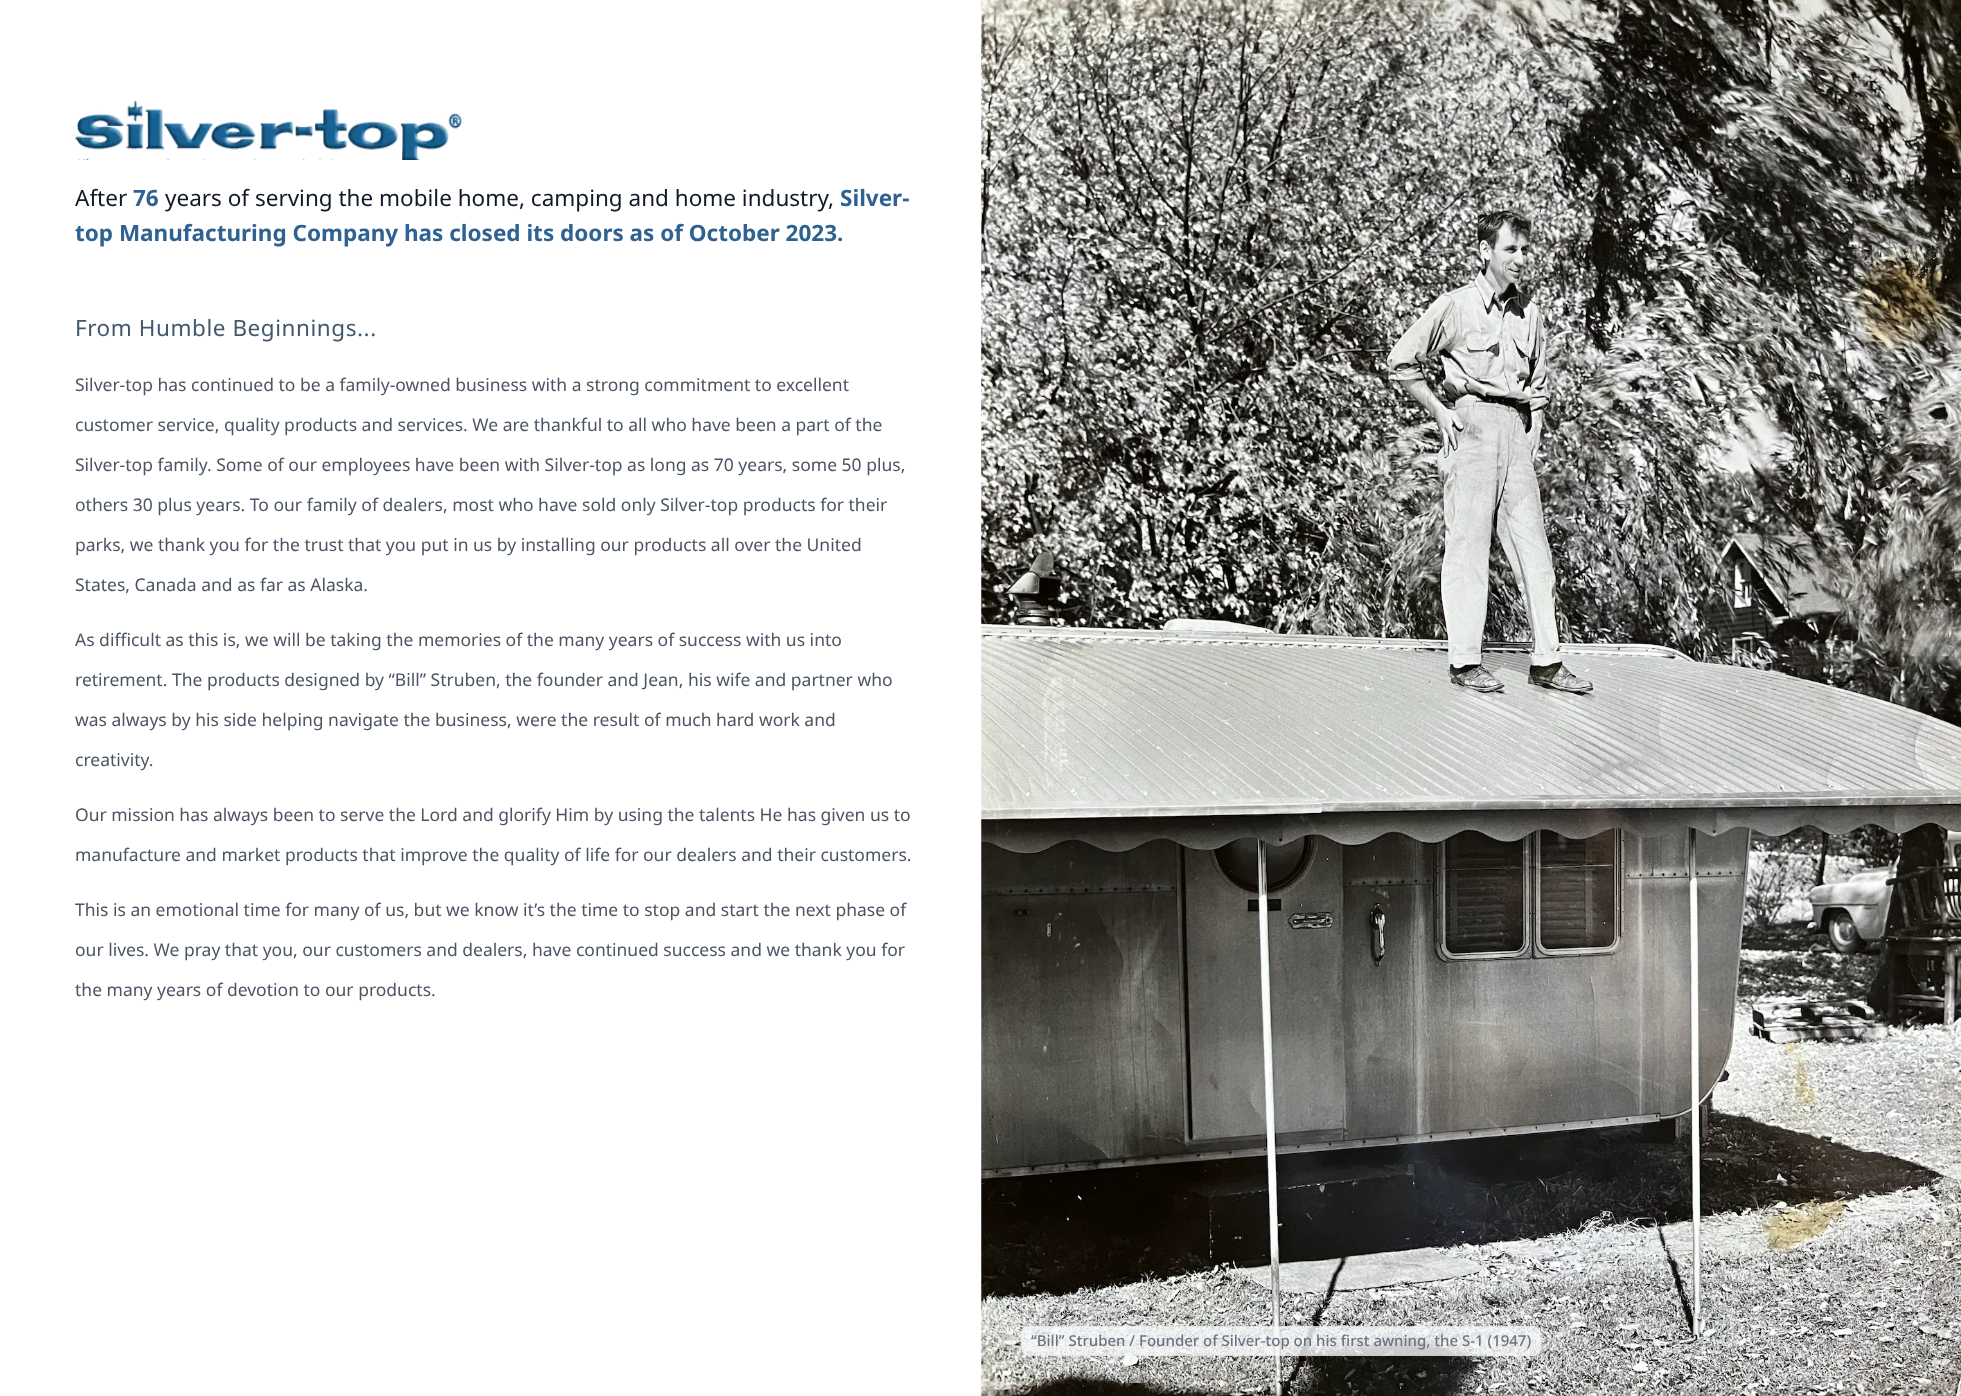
<?xml version="1.0" encoding="UTF-8"?>
<svg xmlns="http://www.w3.org/2000/svg" width="1961" height="1396">
    <rect width="100%" height="100%" fill="#FFFFFF"/>
    <image x="75" y="100" width="387" height="60" href="img_01.png"/>
    <text x="75" y="206" font-family="Noto Sans" font-size="22.5" fill="#111827">After</text>
    <text x="133" y="206" font-family="Noto Sans" font-size="22.5" font-weight="700" fill="#2F6291">76</text>
    <text x="165" y="206" font-family="Noto Sans" font-size="22.5" fill="#111827">years of serving the mobile home, camping and home industry,</text>
    <text x="840" y="206" font-family="Noto Sans" font-size="22.5" font-weight="700" fill="#2F6291">Silver-</text>
    <text x="75" y="241" font-family="Noto Sans" font-size="22.5" font-weight="700" fill="#2F6291">top Manufacturing Company has closed its doors as of October 2023.</text>
    <text x="75" y="336" font-family="Noto Sans" font-size="22.5" letter-spacing="0.55" fill="#41586D">From Humble Beginnings...</text>
    <text x="75" y="391" font-family="Noto Sans" font-size="17.5" fill="#4B5563">Silver-top has continued to be a family-owned business with a strong commitment to excellent</text>
    <text x="75" y="431" font-family="Noto Sans" font-size="17.5" fill="#4B5563">customer service, quality products and services. We are thankful to all who have been a part of the</text>
    <text x="75" y="471" font-family="Noto Sans" font-size="17.5" fill="#4B5563">Silver-top family. Some of our employees have been with Silver-top as long as 70 years, some 50 plus,</text>
    <text x="75" y="511" font-family="Noto Sans" font-size="17.5" fill="#4B5563">others 30 plus years. To our family of dealers, most who have sold only Silver-top products for their</text>
    <text x="75" y="551" font-family="Noto Sans" font-size="17.5" fill="#4B5563">parks, we thank you for the trust that you put in us by installing our products all over the United</text>
    <text x="75" y="591" font-family="Noto Sans" font-size="17.5" fill="#4B5563">States, Canada and as far as Alaska.</text>
    <text x="75" y="646" font-family="Noto Sans" font-size="17.5" fill="#4B5563">As difficult as this is, we will be taking the memories of the many years of success with us into</text>
    <text x="75" y="686" font-family="Noto Sans" font-size="17.5" fill="#4B5563">retirement. The products designed by “Bill” Struben, the founder and Jean, his wife and partner who</text>
    <text x="75" y="726" font-family="Noto Sans" font-size="17.5" fill="#4B5563">was always by his side helping navigate the business, were the result of much hard work and</text>
    <text x="75" y="766" font-family="Noto Sans" font-size="17.5" fill="#4B5563">creativity.</text>
    <text x="75" y="821" font-family="Noto Sans" font-size="17.5" fill="#4B5563">Our mission has always been to serve the Lord and glorify Him by using the talents He has given us to</text>
    <text x="75" y="861" font-family="Noto Sans" font-size="17.5" fill="#4B5563">manufacture and market products that improve the quality of life for our dealers and their customers.</text>
    <text x="75" y="916" font-family="Noto Sans" font-size="17.5" fill="#4B5563">This is an emotional time for many of us, but we know it’s the time to stop and start the next phase of</text>
    <text x="75" y="956" font-family="Noto Sans" font-size="17.5" fill="#4B5563">our lives. We pray that you, our customers and dealers, have continued success and we thank you for</text>
    <text x="75" y="996" font-family="Noto Sans" font-size="17.5" fill="#4B5563">the many years of devotion to our products.</text>
    <image x="981" y="0" width="980" height="1396" href="img_02.png"/>
    <rect x="1021" y="1326" width="520" height="30" rx="8" fill="#F9FAFB" fill-opacity="0.8"/>
    <rect x="1021.5" y="1326.5" width="519" height="29" rx="7.5" fill="none" stroke="#6B7280" stroke-opacity="0.08"/>
    <text x="1031" y="1346" font-family="Noto Sans" font-size="15" font-weight="500" fill="#6A737E">“Bill” Struben / Founder of Silver-top on his first awning, the S-1 (1947)</text>
</svg>
